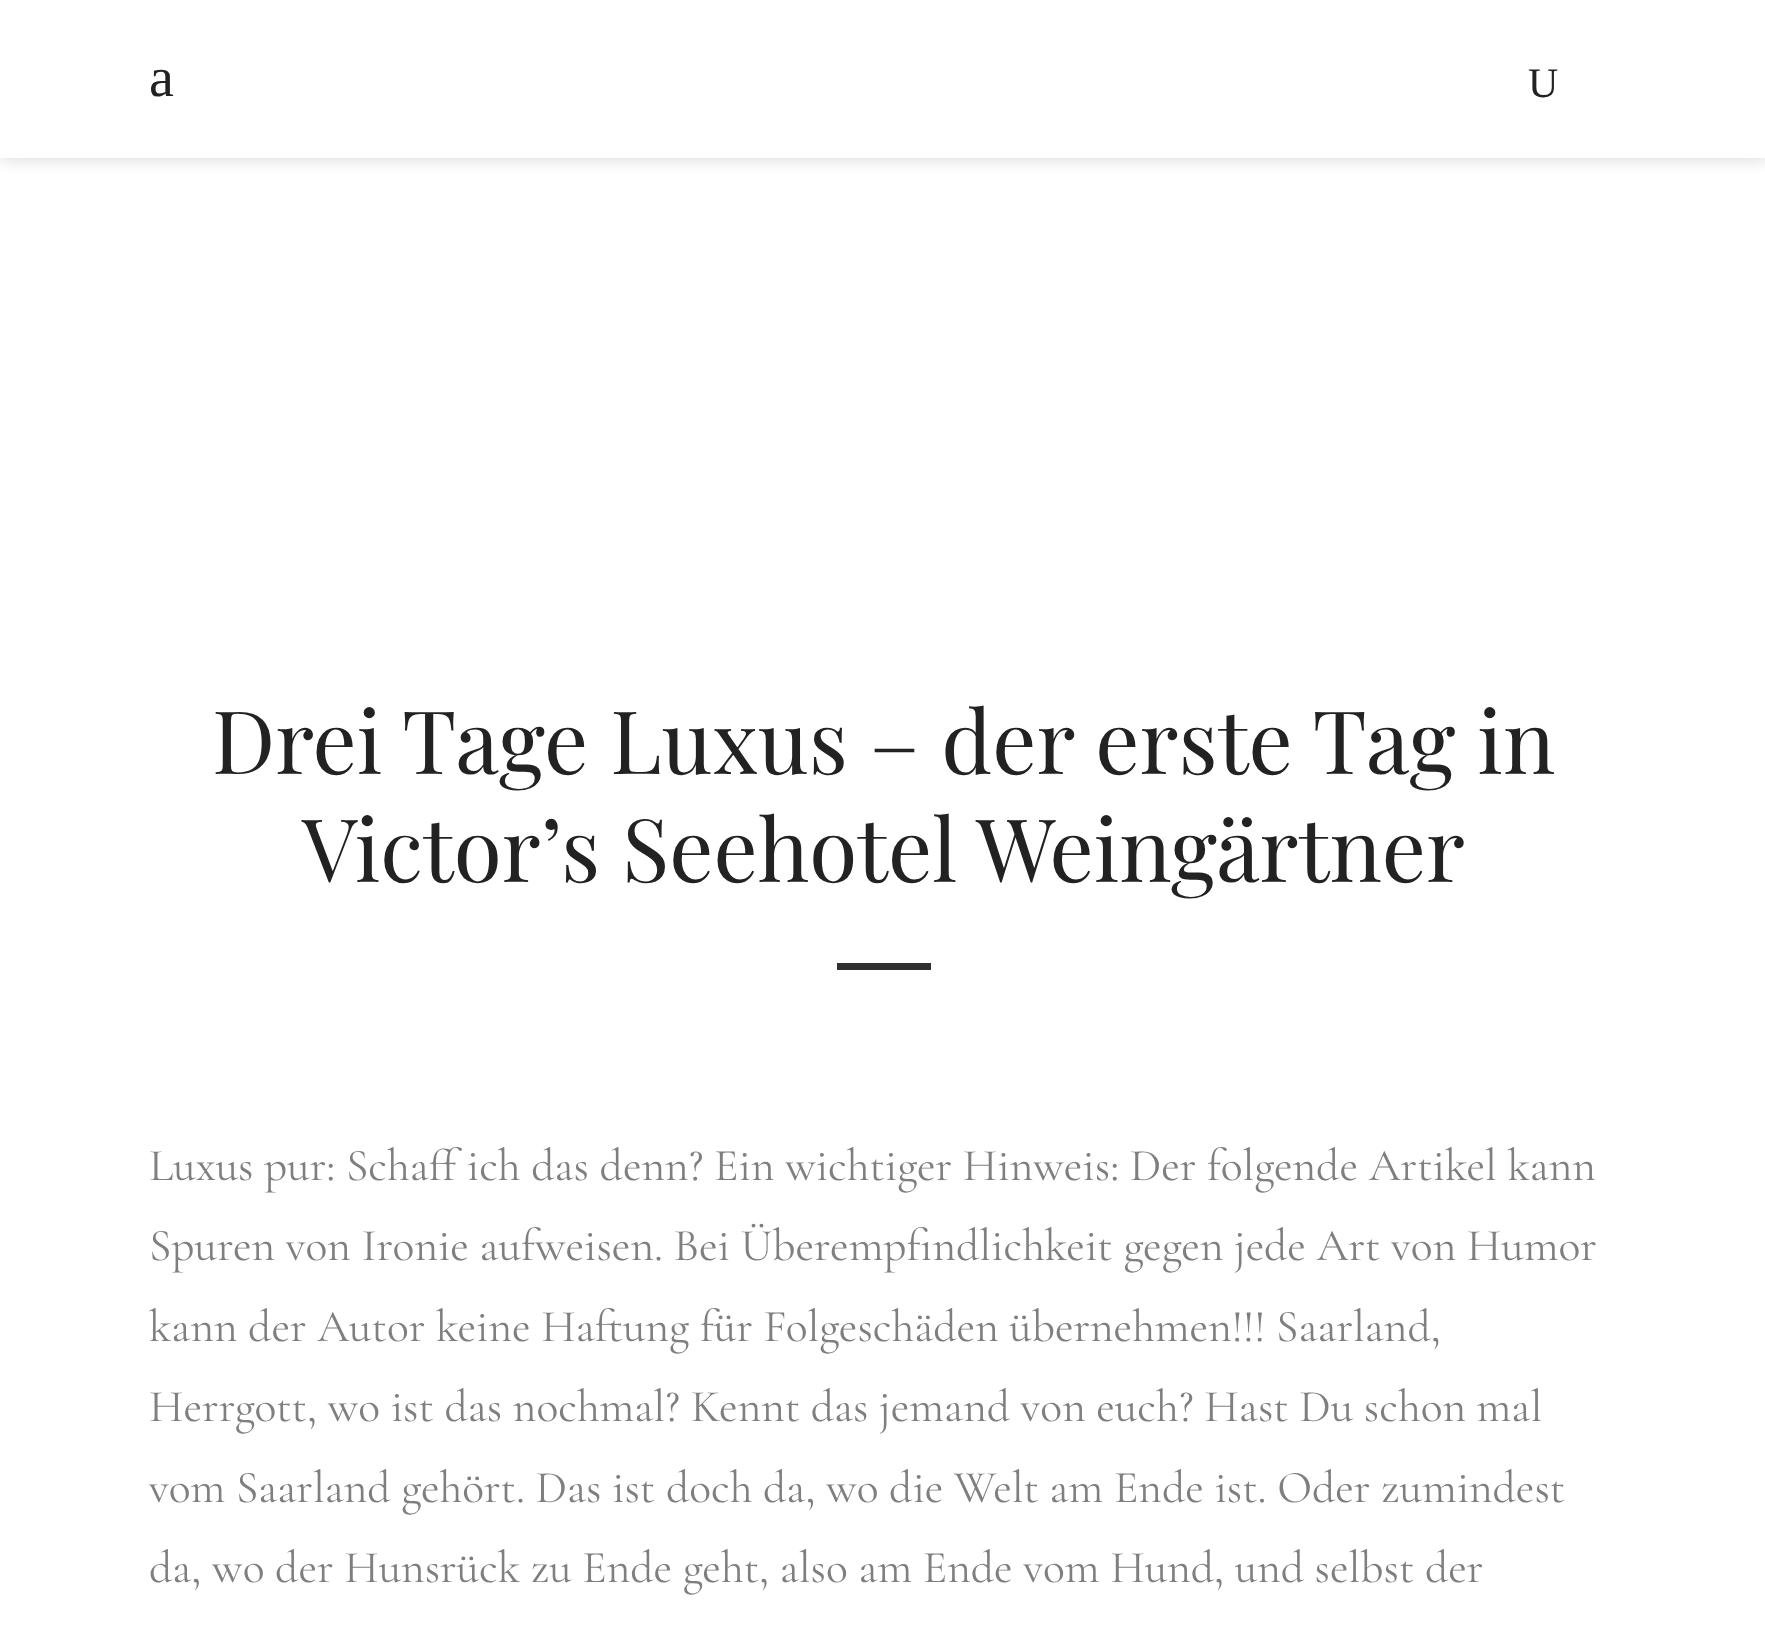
<?xml version="1.0" encoding="UTF-8"?>
<svg xmlns="http://www.w3.org/2000/svg" width="1765" height="1637">
    <defs>
        <filter id="blur1" x="-50%" y="-200%" width="200%" height="500%"><feGaussianBlur stdDeviation="9"/></filter>
    </defs>
    <rect width="100%" height="100%" fill="#FFFFFF"/>
    <rect x="0" y="0" width="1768" height="158" fill="#D4D4D4" filter="url(#blur1)"/>
    <rect x="0" y="0" width="1765" height="158" fill="#FFFFFF"/>
    <text x="149" y="96" font-family="Liberation Serif" font-size="56" fill="#222222">a</text>
    <text x="1528" y="97" font-family="Liberation Serif" font-size="42" fill="#222222">U</text>
    <text x="212" y="774" font-family="Playfair Display" font-size="87.5" fill="#222222">Drei Tage Luxus – der erste Tag in</text>
    <text x="302" y="882" font-family="Playfair Display" font-size="87.5" fill="#222222">Victor’s Seehotel Weingärtner</text>
    <rect x="837" y="963" width="94" height="7" fill="#303030"/>
    <text font-family="Cormorant Garamond" font-size="45.5" fill="#7F7F7F">
        <tspan x="149" y="1180">Luxus pur: Schaff ich das denn? Ein wichtiger Hinweis: Der folgende Artikel kann</tspan>
        <tspan x="149" y="1260">Spuren von Ironie aufweisen. Bei Überempfindlichkeit gegen jede Art von Humor</tspan>
        <tspan x="149" y="1341">kann der Autor keine Haftung für Folgeschäden übernehmen!!! Saarland,</tspan>
        <tspan x="149" y="1421">Herrgott, wo ist das nochmal? Kennt das jemand von euch? Hast Du schon mal</tspan>
        <tspan x="149" y="1502">vom Saarland gehört. Das ist doch da, wo die Welt am Ende ist. Oder zumindest</tspan>
        <tspan x="149" y="1582">da, wo der Hunsrück zu Ende geht, also am Ende vom Hund, und selbst der</tspan>
    </text>
</svg>
